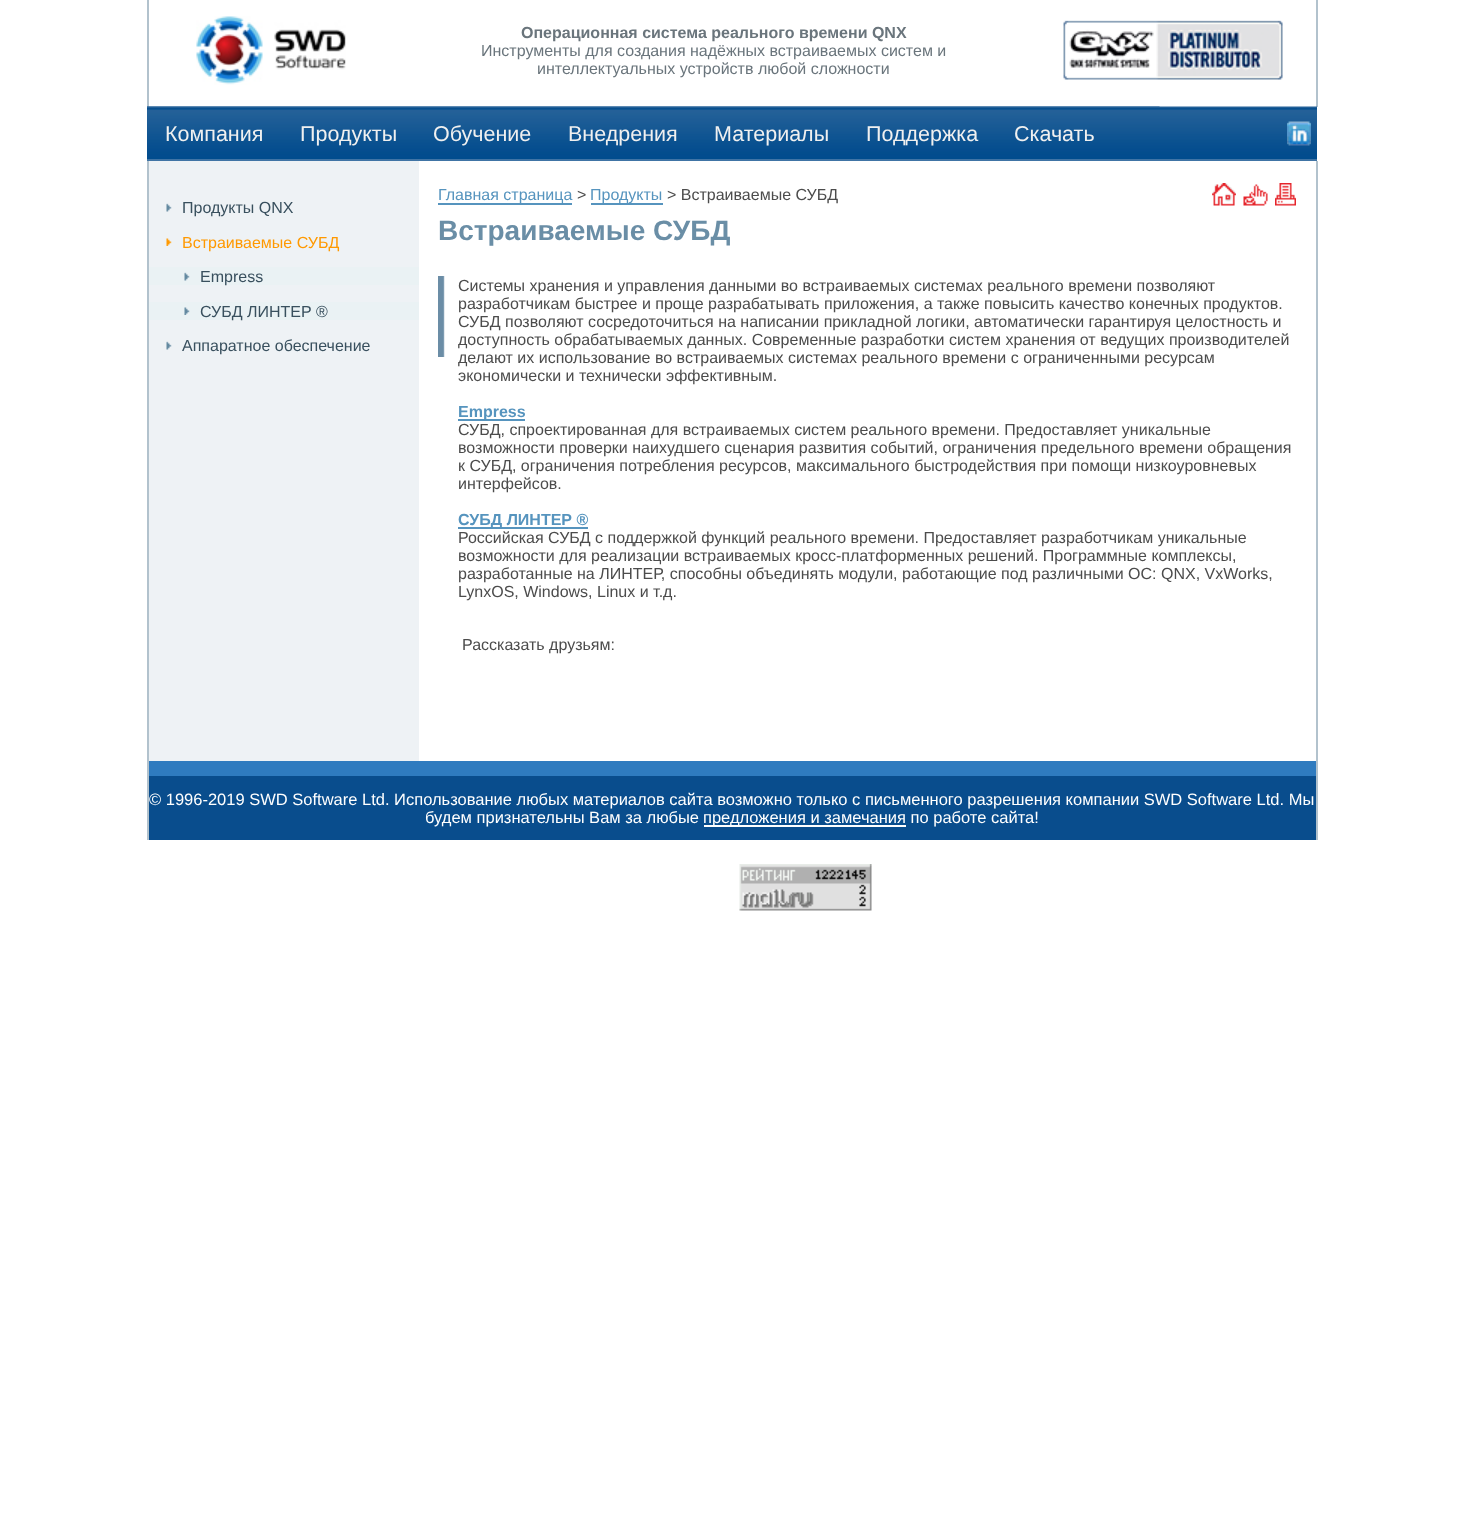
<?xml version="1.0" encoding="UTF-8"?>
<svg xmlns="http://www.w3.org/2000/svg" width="1463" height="1540">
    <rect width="100%" height="100%" fill="#FFFFFF"/>
    <rect x="147" y="0" width="2" height="107" fill="#B2C2CD"/>
    <rect x="1316" y="0" width="2" height="107" fill="#B2C2CD"/>
    <image x="196" y="16" width="150" height="69" href="img_01.png"/>
    <text x="521" y="38" font-family="Liberation Sans" font-size="16" font-weight="700" fill="#6A757C">Операционная система реального времени QNX</text>
    <text x="481" y="56" font-family="Liberation Sans" font-size="16" fill="#6A757C">Инструменты для создания надёжных встраиваемых систем и</text>
    <text x="537" y="74" font-family="Liberation Sans" font-size="16" fill="#6A757C">интеллектуальных устройств любой сложности</text>
    <image x="1063" y="20" width="220" height="60" href="img_02.png"/>
    <rect x="147" y="159" width="1170" height="2" fill="#4074A5"/>
    <image x="147" y="106" width="1047" height="53" href="img_03.png"/>
    <image x="147" y="106" width="1013" height="1" href="img_04.png"/>
    <text x="165" y="141" font-family="Liberation Sans" font-size="21.5" fill="#F0F0F0">Компания</text>
    <text x="300" y="141" font-family="Liberation Sans" font-size="21.5" fill="#F0F0F0">Продукты</text>
    <text x="433" y="141" font-family="Liberation Sans" font-size="21.5" fill="#F0F0F0">Обучение</text>
    <text x="568" y="141" font-family="Liberation Sans" font-size="21.5" fill="#F0F0F0">Внедрения</text>
    <text x="714" y="141" font-family="Liberation Sans" font-size="21.5" fill="#F0F0F0">Материалы</text>
    <text x="866" y="141" font-family="Liberation Sans" font-size="21.5" fill="#F0F0F0">Поддержка</text>
    <text x="1014" y="141" font-family="Liberation Sans" font-size="21.5" fill="#F0F0F0">Скачать</text>
    <image x="1194" y="106" width="123" height="53" href="img_05.png"/>
    <image x="1287" y="121" width="24" height="25" href="img_06.png"/>
    <rect x="147" y="161" width="2" height="679" fill="#B2C2CD"/>
    <rect x="149" y="161" width="270" height="600" fill="#EEF2F5"/>
    <image x="166" y="203" width="6" height="9" href="img_07.png"/>
    <text x="182" y="213" font-family="Liberation Sans" font-size="16" fill="#39505E">Продукты QNX</text>
    <image x="166" y="238" width="6" height="8" href="img_08.png"/>
    <text x="182" y="248" font-family="Liberation Sans" font-size="16" fill="#FF9900">Встраиваемые СУБД</text>
    <rect x="149" y="267" width="270" height="18" fill="#EAF2F4"/>
    <image x="184" y="272" width="6" height="9" href="img_09.png"/>
    <text x="200" y="282" font-family="Liberation Sans" font-size="16" fill="#39505E">Empress</text>
    <rect x="149" y="302" width="270" height="18" fill="#EAF2F4"/>
    <image x="184" y="307" width="6" height="8" href="img_10.png"/>
    <text x="200" y="317" font-family="Liberation Sans" font-size="16" fill="#39505E">СУБД ЛИНТЕР ®</text>
    <image x="166" y="341" width="6" height="9" href="img_07.png"/>
    <text x="182" y="351" font-family="Liberation Sans" font-size="16" fill="#39505E">Аппаратное обеспечение</text>
    <rect x="438" y="203" width="134" height="2" fill="#5694BE"/>
    <text x="438" y="200" font-family="Liberation Sans" font-size="16" fill="#5694BE">Главная страница</text>
    <text x="577" y="200" font-family="Liberation Sans" font-size="16" fill="#4C4C4C">&gt;</text>
    <rect x="591" y="203" width="72" height="2" fill="#5694BE"/>
    <text x="590" y="200" font-family="Liberation Sans" font-size="16" fill="#5694BE">Продукты</text>
    <text x="667" y="200" font-family="Liberation Sans" font-size="16" fill="#4C4C4C">&gt; Встраиваемые СУБД</text>
    <image x="1212" y="183" width="24" height="23" href="img_11.png"/>
    <image x="1243" y="184" width="25" height="22" href="img_12.png"/>
    <image x="1275" y="183" width="21" height="23" href="img_13.png"/>
    <text x="438" y="240" font-family="Liberation Sans" font-size="28" font-weight="700" fill="#6A8EA6">Встраиваемые СУБД</text>
    <image x="438" y="276" width="7" height="81" href="img_14.png"/>
    <text font-family="Liberation Sans" font-size="16" fill="#4C4C4C">
        <tspan x="458" y="291">Системы хранения и управления данными во встраиваемых системах реального времени позволяют</tspan>
        <tspan x="458" y="309">разработчикам быстрее и проще разрабатывать приложения, а также повысить качество конечных продуктов.</tspan>
        <tspan x="458" y="327">СУБД позволяют сосредоточиться на написании прикладной логики, автоматически гарантируя целостность и</tspan>
        <tspan x="458" y="345">доступность обрабатываемых данных. Современные разработки систем хранения от ведущих производителей</tspan>
        <tspan x="458" y="363">делают их использование во встраиваемых системах реального времени с ограниченными ресурсам</tspan>
        <tspan x="458" y="381">экономически и технически эффективным.</tspan>
    </text>
    <rect x="458" y="419" width="67" height="2" fill="#5694BE"/>
    <text x="458" y="417" font-family="Liberation Sans" font-size="16" font-weight="700" fill="#5694BE">Empress</text>
    <text font-family="Liberation Sans" font-size="16" fill="#4C4C4C">
        <tspan x="458" y="435">СУБД, спроектированная для встраиваемых систем реального времени. Предоставляет уникальные</tspan>
        <tspan x="458" y="453">возможности проверки наихудшего сценария развития событий, ограничения предельного времени обращения</tspan>
        <tspan x="458" y="471">к СУБД, ограничения потребления ресурсов, максимального быстродействия при помощи низкоуровневых</tspan>
        <tspan x="458" y="489">интерфейсов.</tspan>
    </text>
    <rect x="458" y="527" width="130" height="2" fill="#5694BE"/>
    <text x="458" y="525" font-family="Liberation Sans" font-size="16" font-weight="700" fill="#5694BE">СУБД ЛИНТЕР ®</text>
    <text font-family="Liberation Sans" font-size="16" fill="#4C4C4C">
        <tspan x="458" y="543">Российская СУБД с поддержкой функций реального времени. Предоставляет разработчикам уникальные</tspan>
        <tspan x="458" y="561">возможности для реализации встраиваемых кросс-платформенных решений. Программные комплексы,</tspan>
        <tspan x="458" y="579">разработанные на ЛИНТЕР, способны объединять модули, работающие под различными ОС: QNX, VxWorks,</tspan>
        <tspan x="458" y="597">LynxOS, Windows, Linux и т.д.</tspan>
    </text>
    <text x="462" y="650" font-family="Liberation Sans" font-size="16" fill="#4C4C4C">Рассказать друзьям:</text>
    <rect x="1316" y="161" width="2" height="679" fill="#B2C2CD"/>
    <rect x="149" y="761" width="1167" height="15" fill="#2F7BBF"/>
    <rect x="149" y="776" width="1167" height="64" fill="#094D8D"/>
    <text x="149" y="805" font-family="Liberation Sans" font-size="16.5" fill="#FFFFFF">© 1996-2019 SWD Software Ltd. Использование любых материалов сайта возможно только с письменного разрешения компании SWD Software Ltd. Мы</text>
    <text x="425" y="823" font-family="Liberation Sans" font-size="16.5" fill="#FFFFFF">будем признательны Вам за любые</text>
    <rect x="704" y="825" width="202" height="2" fill="#FFFFFF"/>
    <text x="703" y="823" font-family="Liberation Sans" font-size="16.5" fill="#FFFFFF">предложения и замечания по работе сайта!</text>
    <image x="739" y="864" width="133" height="47" href="img_15.png"/>
</svg>
